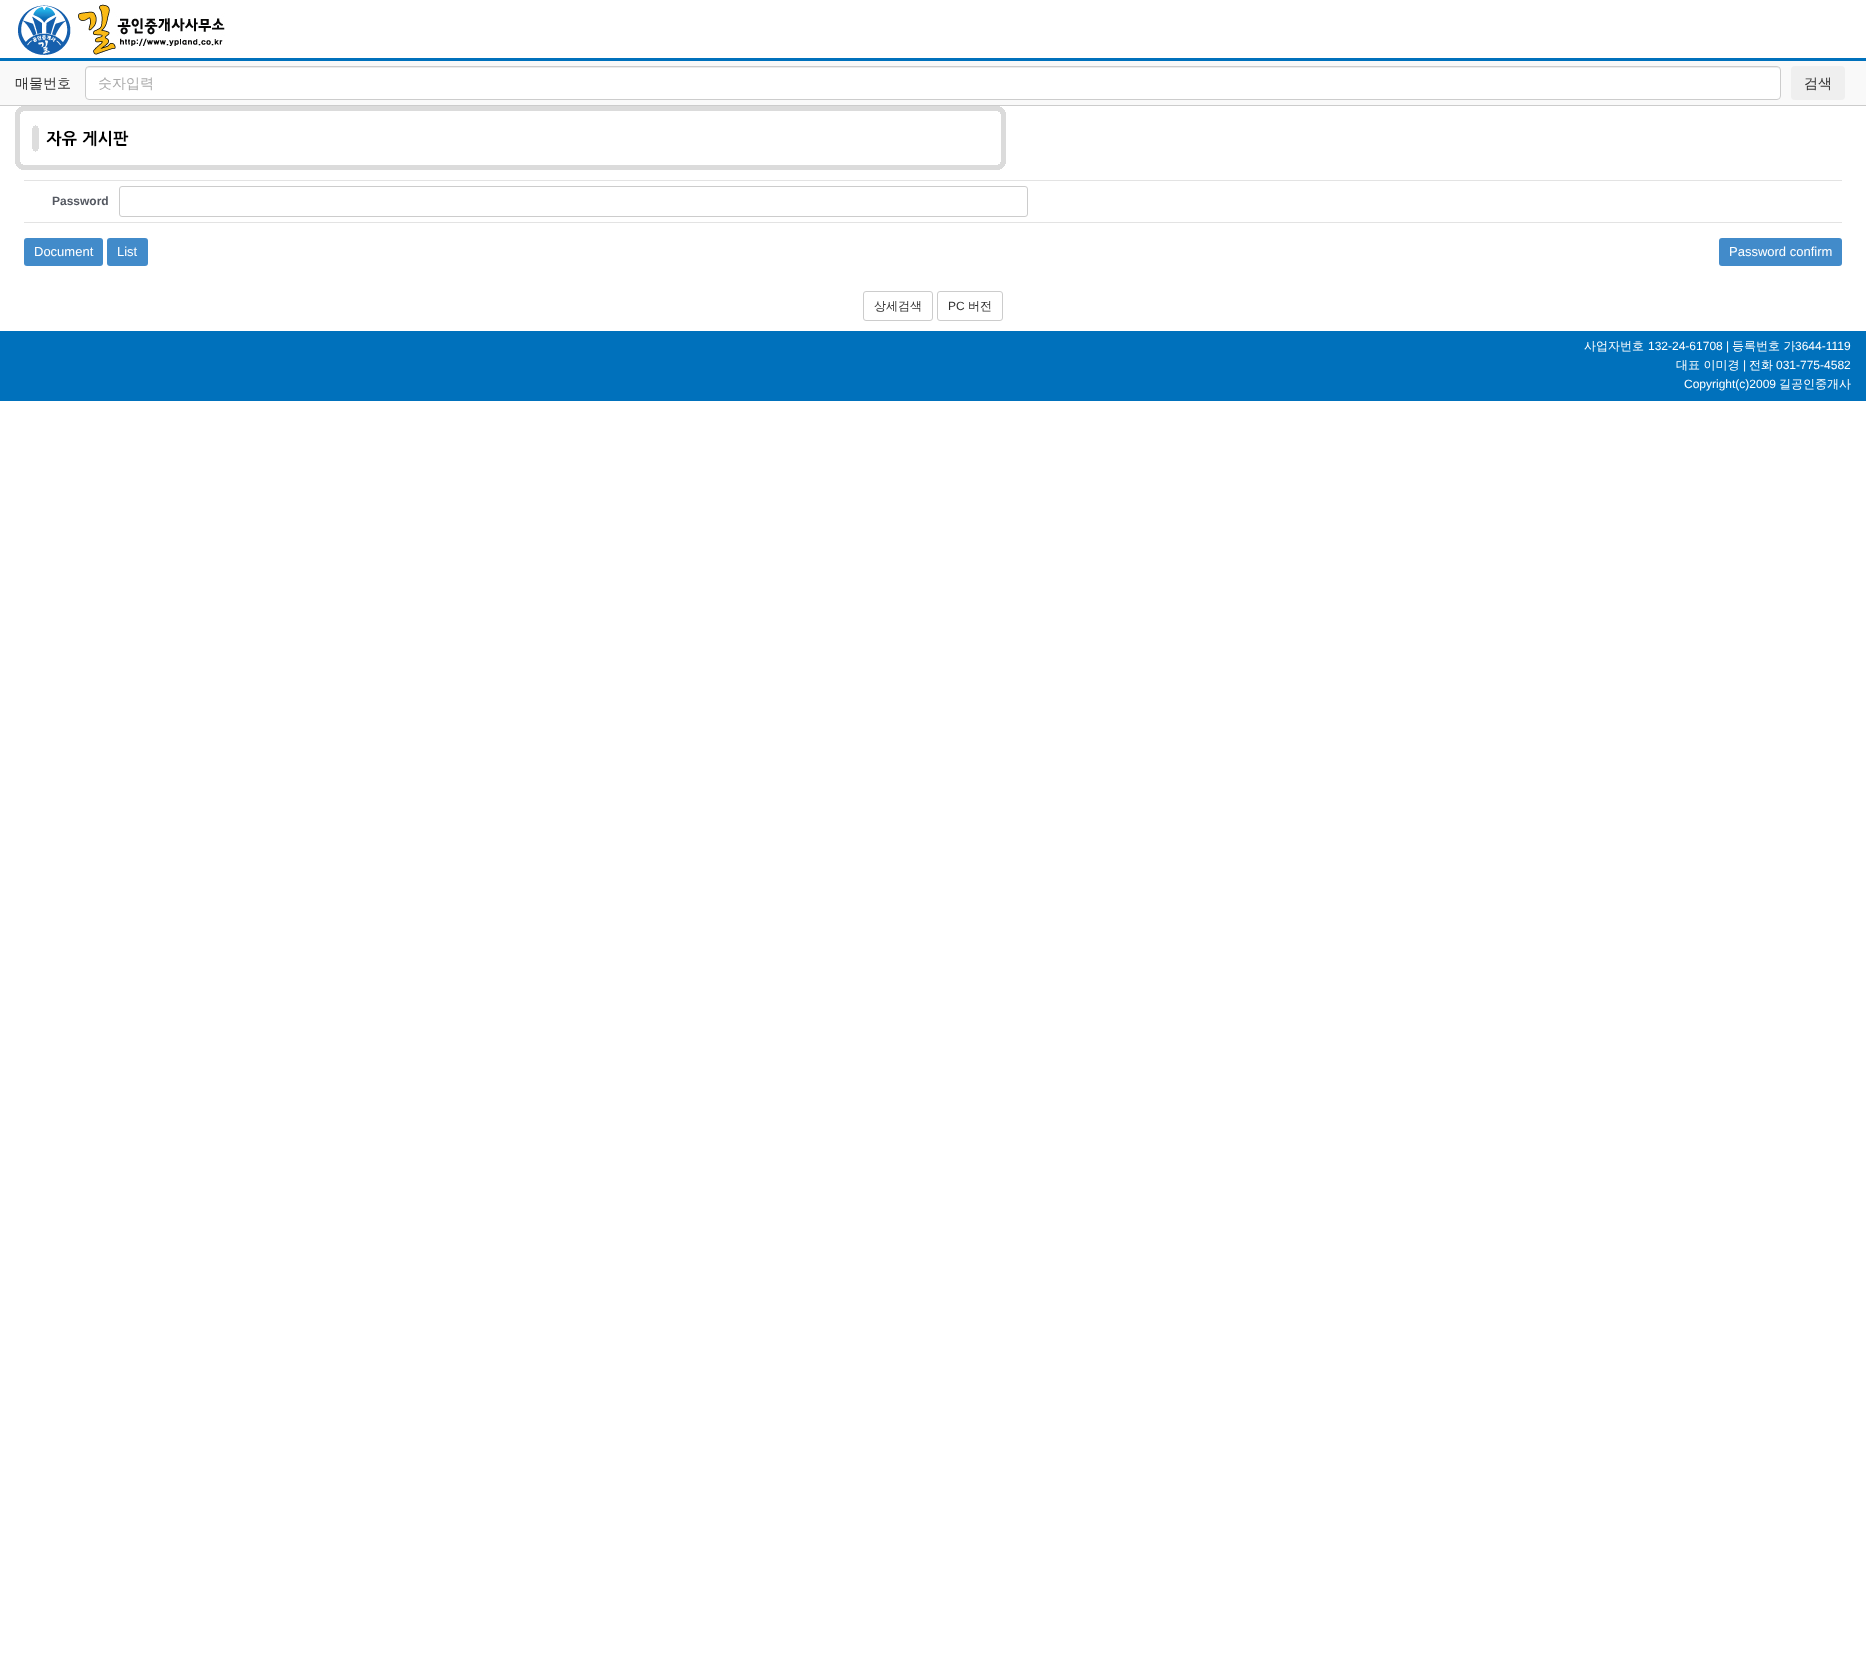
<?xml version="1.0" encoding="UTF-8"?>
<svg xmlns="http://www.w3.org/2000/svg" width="1866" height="1655">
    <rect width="100%" height="100%" fill="#FFFFFF"/>
    <image x="18" y="4" width="207" height="51" href="img_01.png"/>
    <rect x="0" y="61" width="1866" height="44" fill="#F9F9F9"/>
    <rect x="0" y="58" width="1866" height="3" fill="#0071BC"/>
    <rect x="0" y="105" width="1866" height="1" fill="#CCCCCC"/>
    <text x="15" y="88" font-family="WenQuanYi Zen Hei" font-size="14" font-weight="500" fill="#333333">매물번호</text>
    <rect x="85" y="66" width="1696" height="34" rx="4" fill="#FFFFFF"/>
    <path d="M 89 68 H 1777 C 1779 68 1780 69 1780 71 V 70 C 1780 68 1779 67 1777 67 H 89 C 87 67 86 68 86 70 V 71 C 86 69 87 68 89 68 Z" fill="#ECECEC"/>
    <rect x="85.5" y="66.5" width="1695" height="33" rx="3.5" fill="none" stroke="#CCCCCC"/>
    <text x="98" y="88" font-family="WenQuanYi Zen Hei" font-size="14" font-weight="500" fill="#AAAAAA">숫자입력</text>
    <rect x="1791" y="66" width="54" height="34" rx="4" fill="#EFEFEF"/>
    <text x="1804" y="88" font-family="WenQuanYi Zen Hei" font-size="14" font-weight="500" fill="#333333">검색</text>
    <image x="15" y="106" width="991" height="64" href="img_02.png"/>
    <rect x="24" y="180" width="1818" height="1" fill="#E3E3E3"/>
    <rect x="24" y="222" width="1818" height="1" fill="#E3E3E3"/>
    <text x="52" y="205" font-family="Liberation Sans" font-size="12" font-weight="700" fill="#545861">Password</text>
    <rect x="119.5" y="186.5" width="908" height="30" rx="2.5" fill="none" stroke="#CCCCCC"/>
    <rect x="24" y="238" width="79" height="28" rx="3" fill="#428BCA"/>
    <text x="34" y="256" font-family="Liberation Sans" font-size="13" fill="#FFFFFF">Document</text>
    <rect x="107" y="238" width="41" height="28" rx="3" fill="#428BCA"/>
    <text x="117" y="256" font-family="Liberation Sans" font-size="13" fill="#FFFFFF">List</text>
    <rect x="1719" y="238" width="123" height="28" rx="3" fill="#428BCA"/>
    <text x="1729" y="256" font-family="Liberation Sans" font-size="13" fill="#FFFFFF">Password confirm</text>
    <rect x="863.5" y="291.5" width="69" height="29" rx="2.5" fill="none" stroke="#CCCCCC"/>
    <text x="874" y="310" font-family="WenQuanYi Zen Hei" font-size="12" font-weight="500" fill="#333333">상세검색</text>
    <rect x="937.5" y="291.5" width="65" height="29" rx="2.5" fill="none" stroke="#CCCCCC"/>
    <text x="948" y="310" font-family="Liberation Sans" font-size="12" fill="#333333">PC</text>
    <text x="968" y="310" font-family="WenQuanYi Zen Hei" font-size="12" font-weight="500" fill="#333333">버전</text>
    <rect x="0" y="331" width="1866" height="70" fill="#0071BC"/>
    <text x="1584" y="350" font-family="WenQuanYi Zen Hei" font-size="12" font-weight="500" fill="#FFFFFF">사업자번호</text>
    <text x="1648" y="350" font-family="Liberation Sans" font-size="12" fill="#FFFFFF">132-24-61708 |</text>
    <text x="1732" y="350" font-family="WenQuanYi Zen Hei" font-size="12" font-weight="500" fill="#FFFFFF">등록번호 가</text>
    <text x="1795" y="350" font-family="Liberation Sans" font-size="12" fill="#FFFFFF">3644-1119</text>
    <text x="1676" y="369" font-family="WenQuanYi Zen Hei" font-size="12" font-weight="500" fill="#FFFFFF">대표 이미경</text>
    <text x="1743" y="369" font-family="Liberation Sans" font-size="12" fill="#FFFFFF">|</text>
    <text x="1749" y="369" font-family="WenQuanYi Zen Hei" font-size="12" font-weight="500" fill="#FFFFFF">전화</text>
    <text x="1776" y="369" font-family="Liberation Sans" font-size="12" fill="#FFFFFF">031-775-4582</text>
    <text x="1684" y="388" font-family="Liberation Sans" font-size="12" fill="#FFFFFF">Copyright(c)2009</text>
    <text x="1779" y="388" font-family="WenQuanYi Zen Hei" font-size="12" font-weight="500" fill="#FFFFFF">길공인중개사</text>
</svg>
